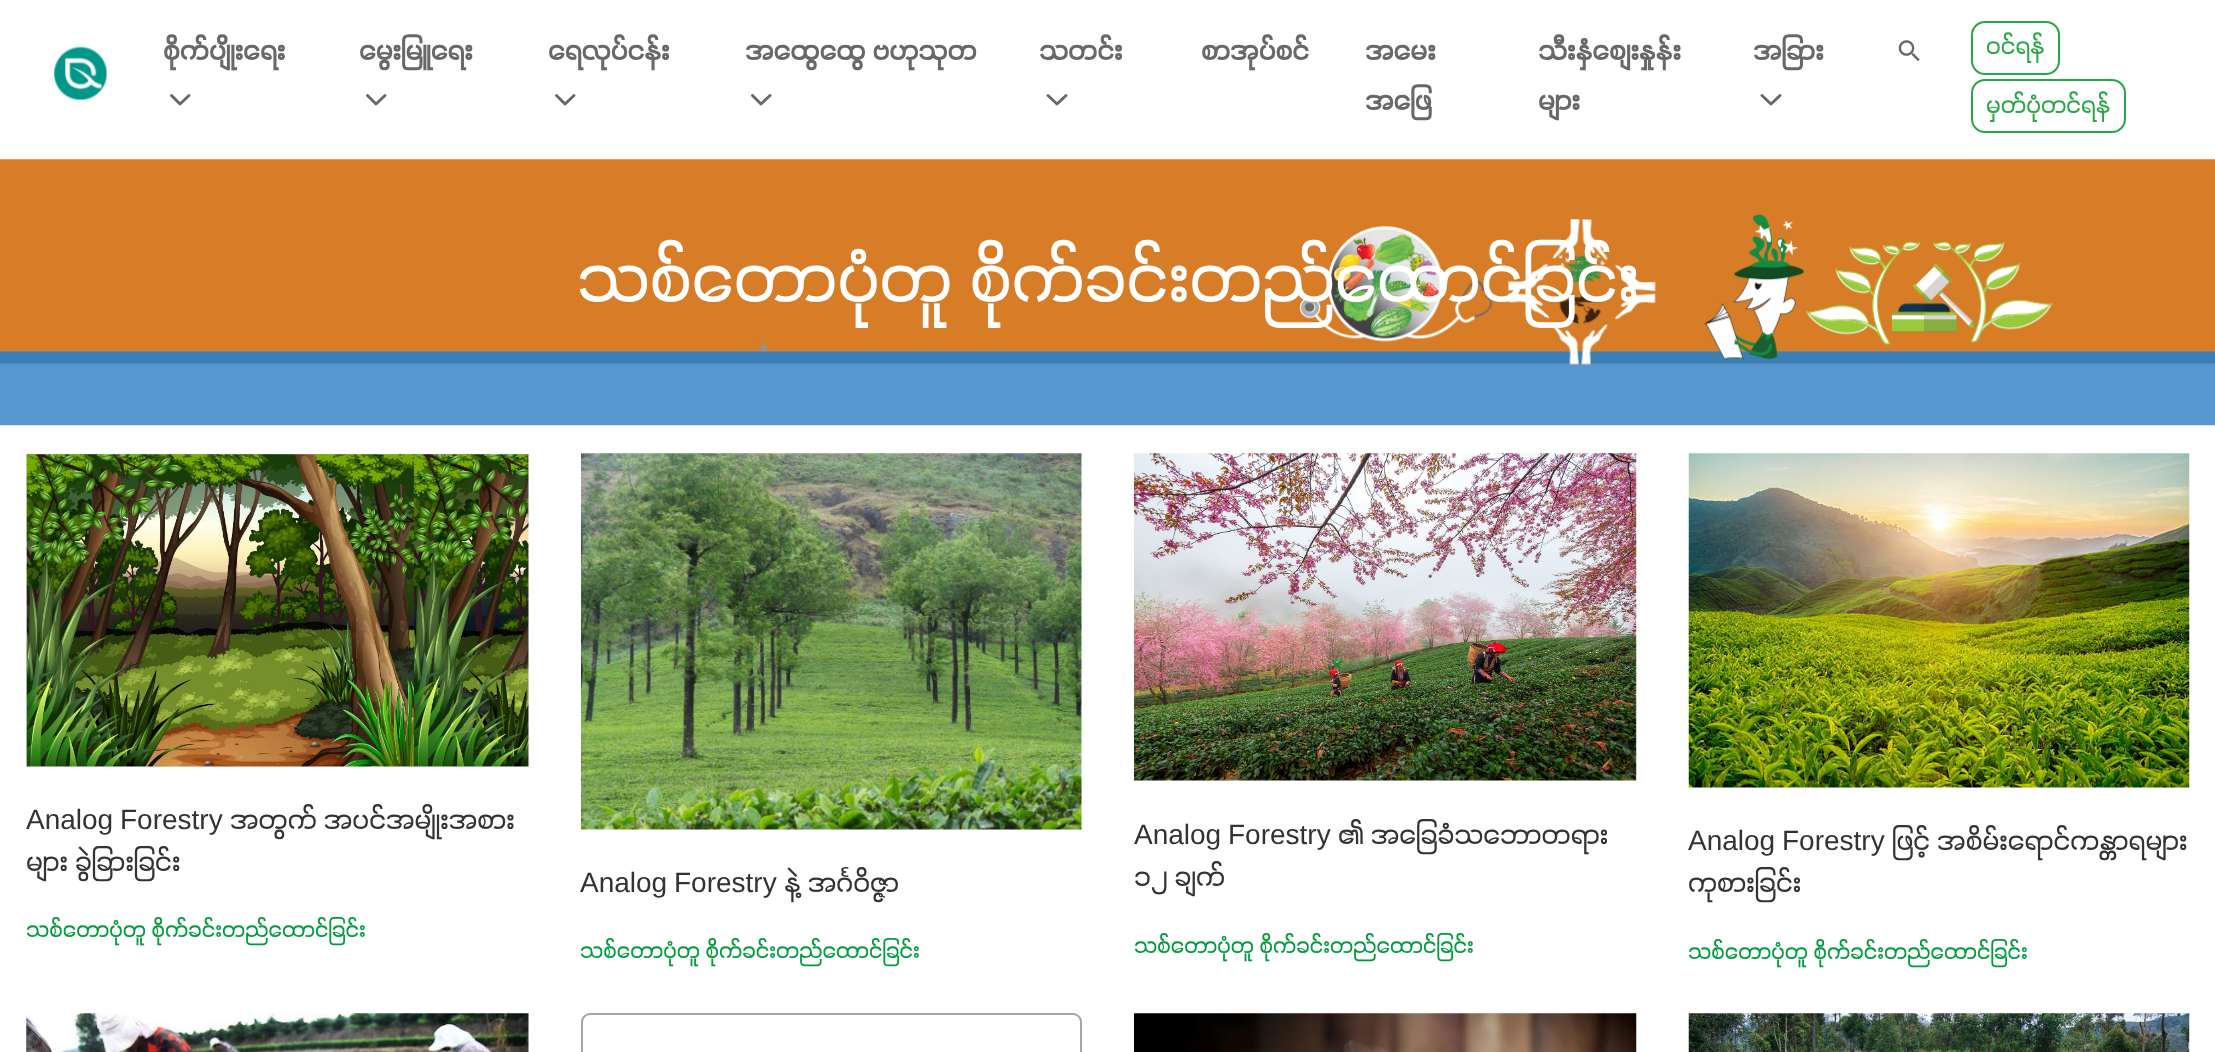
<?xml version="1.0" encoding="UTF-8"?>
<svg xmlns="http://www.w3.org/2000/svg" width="2215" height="1052">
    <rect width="100%" height="100%" fill="#FFFFFF"/>
    <image x="54" y="46" width="53" height="54" href="img_01.png"/>
    <text x="163" y="60" font-family="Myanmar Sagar" font-size="28" font-weight="700" fill="#686868">စိုက်ပျိုးရေး</text>
    <path d="M 171.5 95.5 L 180 104 L 189 95.5" fill="none" stroke="#686868" stroke-width="2.9" stroke-linecap="round" stroke-linejoin="round"/>
    <text x="359" y="60" font-family="Myanmar Sagar" font-size="28" font-weight="700" fill="#686868">မွေးမြူရေး</text>
    <path d="M 367.5 95.5 L 376 104 L 385 95.5" fill="none" stroke="#686868" stroke-width="2.9" stroke-linecap="round" stroke-linejoin="round"/>
    <text x="548" y="60" font-family="Myanmar Sagar" font-size="28" font-weight="700" fill="#686868">ရေလုပ်ငန်း</text>
    <path d="M 556.5 95.5 L 565 104 L 574 95.5" fill="none" stroke="#686868" stroke-width="2.9" stroke-linecap="round" stroke-linejoin="round"/>
    <text x="745" y="60" font-family="Myanmar Sagar" font-size="28" font-weight="700" fill="#686868">အထွေထွေ ဗဟုသုတ</text>
    <path d="M 752.5 95.5 L 761 104 L 770 95.5" fill="none" stroke="#686868" stroke-width="2.9" stroke-linecap="round" stroke-linejoin="round"/>
    <text x="1039" y="60" font-family="Myanmar Sagar" font-size="28" font-weight="700" fill="#686868">သတင်း</text>
    <path d="M 1048 95.5 L 1057 104 L 1066 95.5" fill="none" stroke="#686868" stroke-width="2.9" stroke-linecap="round" stroke-linejoin="round"/>
    <text x="1201" y="60" font-family="Myanmar Sagar" font-size="28" font-weight="700" fill="#686868">စာအုပ်စင်</text>
    <text font-family="Myanmar Sagar" font-size="28" font-weight="700" fill="#686868">
        <tspan x="1365" y="60">အမေး</tspan>
        <tspan x="1365" y="110">အဖြေ</tspan>
    </text>
    <text font-family="Myanmar Sagar" font-size="28" font-weight="700" fill="#686868">
        <tspan x="1538" y="60">သီးနှံစျေးနှုန်း</tspan>
        <tspan x="1538" y="110">များ</tspan>
    </text>
    <text x="1753" y="60" font-family="Myanmar Sagar" font-size="28" font-weight="700" fill="#686868">အခြား</text>
    <path d="M 1762 95.5 L 1771 104 L 1780 95.5" fill="none" stroke="#686868" stroke-width="2.9" stroke-linecap="round" stroke-linejoin="round"/>
    <image x="1898" y="40" width="22" height="22" href="img_02.png"/>
    <rect x="1972" y="22" width="87" height="52" rx="13" fill="none" stroke="#28A745" stroke-width="2"/>
    <text x="1986" y="54" font-family="Myanmar Sagar" font-size="24.5" fill="#28A745">ဝင်ရန်</text>
    <rect x="1972" y="80" width="153" height="52" rx="13" fill="none" stroke="#28A745" stroke-width="2"/>
    <text x="1986" y="113" font-family="Myanmar Sagar" font-size="24.5" fill="#28A745">မှတ်ပုံတင်ရန်</text>
    <image x="0" y="159" width="2215" height="267" href="img_03.png"/>
    <text x="577" y="302" font-family="Myanmar Sagar" font-size="70" fill="#FFFFFF">သစ်တောပုံတူ စိုက်ခင်းတည်ထောင်ခြင်း</text>
    <image x="26" y="453" width="503" height="314" href="img_04.png"/>
    <text x="26" y="829" font-family="Liberation Sans" font-size="28" fill="#333333">Analog</text>
    <text x="120" y="829" font-family="Liberation Sans" font-size="28" fill="#333333">Forestry</text>
    <text x="230" y="829" font-family="Myanmar Sagar" font-size="28" fill="#333333">အတွက် အပင်အမျိုးအစား</text>
    <text x="26" y="871" font-family="Myanmar Sagar" font-size="28" fill="#333333">များ ခွဲခြားခြင်း</text>
    <text x="26" y="937" font-family="Myanmar Sagar" font-size="22.4" fill="#009D3E">သစ်တောပုံတူ စိုက်ခင်းတည်ထောင်ခြင်း</text>
    <image x="581" y="453" width="501" height="377" href="img_05.png"/>
    <text x="580" y="892" font-family="Liberation Sans" font-size="28" fill="#333333">Analog</text>
    <text x="674" y="892" font-family="Liberation Sans" font-size="28" fill="#333333">Forestry</text>
    <text x="784" y="892" font-family="Myanmar Sagar" font-size="28" fill="#333333">နဲ့ အင်္ဂဝိဇ္ဇာ</text>
    <text x="580" y="958" font-family="Myanmar Sagar" font-size="22.4" fill="#009D3E">သစ်တောပုံတူ စိုက်ခင်းတည်ထောင်ခြင်း</text>
    <image x="1134" y="453" width="503" height="328" href="img_06.png"/>
    <text x="1134" y="844" font-family="Liberation Sans" font-size="28" fill="#333333">Analog</text>
    <text x="1228" y="844" font-family="Liberation Sans" font-size="28" fill="#333333">Forestry</text>
    <text x="1338" y="844" font-family="Myanmar Sagar" font-size="28" fill="#333333">၏ အခြေခံသဘောတရား</text>
    <text x="1134" y="886" font-family="Myanmar Sagar" font-size="28" fill="#333333">၁၂ ချက်</text>
    <text x="1134" y="953" font-family="Myanmar Sagar" font-size="22.4" fill="#009D3E">သစ်တောပုံတူ စိုက်ခင်းတည်ထောင်ခြင်း</text>
    <image x="1688" y="453" width="502" height="335" href="img_07.png"/>
    <text x="1688" y="850" font-family="Liberation Sans" font-size="28" fill="#333333">Analog</text>
    <text x="1782" y="850" font-family="Liberation Sans" font-size="28" fill="#333333">Forestry</text>
    <text x="1892" y="850" font-family="Myanmar Sagar" font-size="28" fill="#333333">ဖြင့် အစိမ်းရောင်ကန္တာရများ</text>
    <text x="1688" y="892" font-family="Myanmar Sagar" font-size="28" fill="#333333">ကုစားခြင်း</text>
    <text x="1688" y="959" font-family="Myanmar Sagar" font-size="22.4" fill="#009D3E">သစ်တောပုံတူ စိုက်ခင်းတည်ထောင်ခြင်း</text>
    <image x="26" y="1013" width="503" height="39" href="img_08.png"/>
    <rect x="582" y="1014" width="499" height="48" rx="8" fill="none" stroke="#A6A6A6" stroke-width="2"/>
    <image x="1134" y="1013" width="503" height="39" href="img_09.png"/>
    <image x="1688" y="1013" width="502" height="39" href="img_10.png"/>
</svg>
